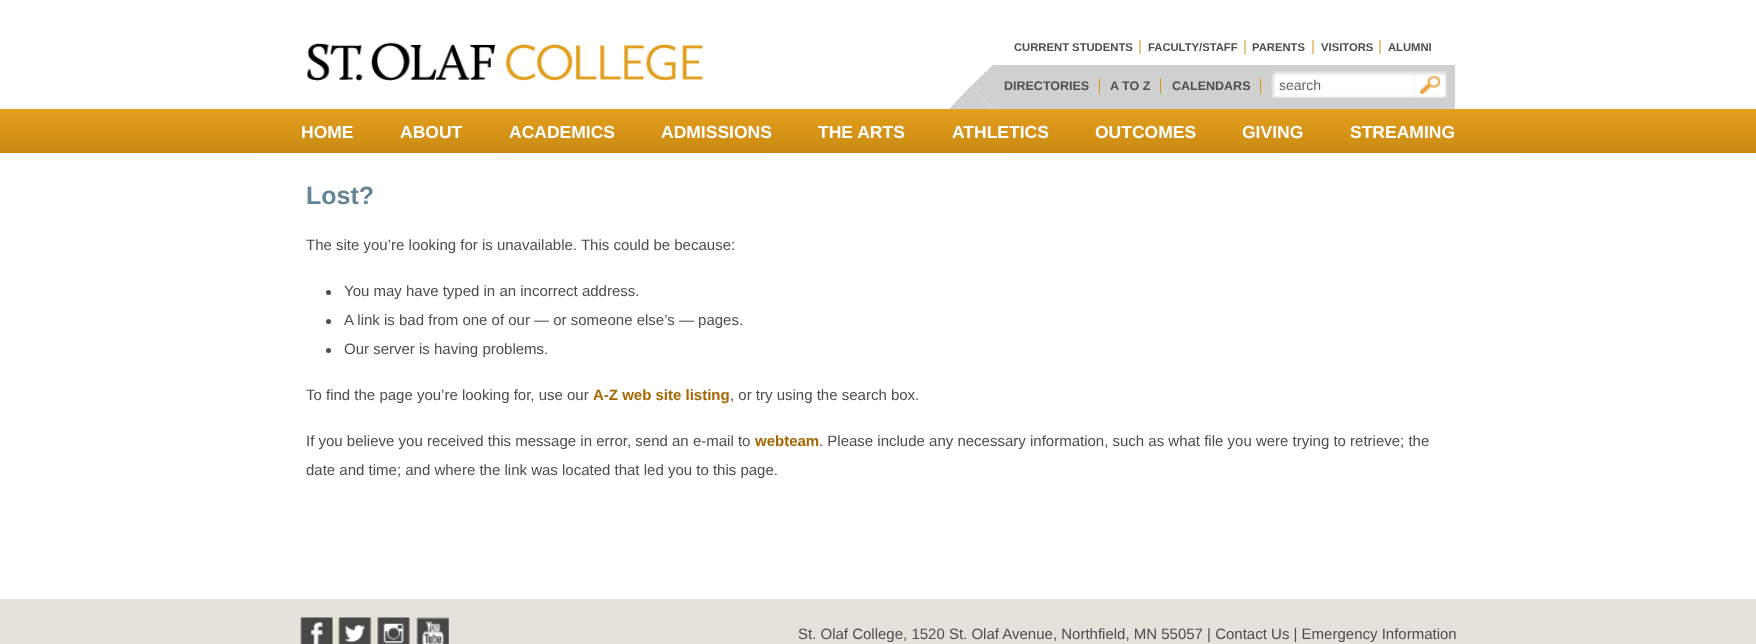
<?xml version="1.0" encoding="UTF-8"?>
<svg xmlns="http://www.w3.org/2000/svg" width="1756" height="644">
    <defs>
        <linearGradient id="g1" gradientUnits="userSpaceOnUse" x1="878" y1="109" x2="878" y2="153"><stop offset="0" stop-color="#E59F1E"/><stop offset="1" stop-color="#C98912"/></linearGradient>
    </defs>
    <rect width="100%" height="100%" fill="#FFFFFF"/>
    <image x="306" y="42" width="397" height="39" href="img_01.png"/>
    <text x="1014" y="51" font-family="Liberation Sans" font-size="11.25" font-weight="700" fill="#4D4D4F">CURRENT STUDENTS</text>
    <text x="1138" y="51" font-family="Liberation Sans" font-size="15" fill="#DEA949">|</text>
    <text x="1148" y="51" font-family="Liberation Sans" font-size="11.25" font-weight="700" fill="#4D4D4F">FACULTY/STAFF</text>
    <text x="1243" y="51" font-family="Liberation Sans" font-size="15" fill="#DEA949">|</text>
    <text x="1252" y="51" font-family="Liberation Sans" font-size="11.25" font-weight="700" fill="#4D4D4F">PARENTS</text>
    <text x="1311" y="51" font-family="Liberation Sans" font-size="15" fill="#DEA949">|</text>
    <text x="1321" y="51" font-family="Liberation Sans" font-size="11.25" font-weight="700" fill="#4D4D4F">VISITORS</text>
    <text x="1378" y="51" font-family="Liberation Sans" font-size="15" fill="#DEA949">|</text>
    <text x="1388" y="51" font-family="Liberation Sans" font-size="11.25" font-weight="700" fill="#4D4D4F">ALUMNI</text>
    <path d="M 994 64 V 109 L 971 86 Z" fill="#D0D0D0"/>
    <path d="M 994 109 H 949 L 971 86 Z" fill="#D0D0D0"/>
    <rect x="994" y="65" width="461" height="44" fill="#D0D0D0"/>
    <rect x="1099" y="78" width="1" height="16" fill="#D89614"/>
    <text x="1004" y="90" font-family="Liberation Sans" font-size="12.5" font-weight="700" fill="#4D4D4F">DIRECTORIES</text>
    <rect x="1160" y="78" width="1" height="16" fill="#D89614"/>
    <text x="1110" y="90" font-family="Liberation Sans" font-size="12.5" font-weight="700" fill="#4D4D4F">A TO Z</text>
    <rect x="1260" y="78" width="1" height="16" fill="#D89614"/>
    <text x="1172" y="90" font-family="Liberation Sans" font-size="12.5" font-weight="700" fill="#4D4D4F">CALENDARS</text>
    <image x="1271" y="71" width="143" height="27" href="img_02.png"/>
    <text x="1279" y="90" font-family="Liberation Sans" font-size="14" fill="#636466">search</text>
    <image x="1414" y="71" width="33" height="27" href="img_03.png"/>
    <rect x="0" y="109" width="1756" height="44" fill="url(#g1)"/>
    <text x="301" y="138" font-family="Liberation Sans" font-size="17.5" font-weight="700" fill="#FFFFFF">HOME</text>
    <text x="400" y="138" font-family="Liberation Sans" font-size="17.5" font-weight="700" fill="#FFFFFF">ABOUT</text>
    <text x="509" y="138" font-family="Liberation Sans" font-size="17.5" font-weight="700" fill="#FFFFFF">ACADEMICS</text>
    <text x="661" y="138" font-family="Liberation Sans" font-size="17.5" font-weight="700" fill="#FFFFFF">ADMISSIONS</text>
    <text x="818" y="138" font-family="Liberation Sans" font-size="17.5" font-weight="700" fill="#FFFFFF">THE ARTS</text>
    <text x="952" y="138" font-family="Liberation Sans" font-size="17.5" font-weight="700" fill="#FFFFFF">ATHLETICS</text>
    <text x="1095" y="138" font-family="Liberation Sans" font-size="17.5" font-weight="700" fill="#FFFFFF">OUTCOMES</text>
    <text x="1242" y="138" font-family="Liberation Sans" font-size="17.5" font-weight="700" fill="#FFFFFF">GIVING</text>
    <text x="1350" y="138" font-family="Liberation Sans" font-size="17.5" font-weight="700" fill="#FFFFFF">STREAMING</text>
    <text x="306" y="204" font-family="Liberation Sans" font-size="25" font-weight="700" fill="#638597">Lost?</text>
    <text x="306" y="250" font-family="Liberation Sans" font-size="15" fill="#4D4D4F">The site you’re looking for is unavailable. This could be because:</text>
    <circle cx="328.5" cy="292.5" r="2.5" fill="#4D4D4F"/>
    <text x="344" y="296" font-family="Liberation Sans" font-size="15" fill="#4D4D4F">You may have typed in an incorrect address.</text>
    <circle cx="328.5" cy="321.5" r="2.5" fill="#4D4D4F"/>
    <text x="344" y="325" font-family="Liberation Sans" font-size="15" fill="#4D4D4F">A link is bad from one of our — or someone else’s — pages.</text>
    <circle cx="328.5" cy="350.5" r="2.5" fill="#4D4D4F"/>
    <text x="344" y="354" font-family="Liberation Sans" font-size="15" fill="#4D4D4F">Our server is having problems.</text>
    <text x="306" y="400" font-family="Liberation Sans" font-size="15" fill="#4D4D4F">To find the page you’re looking for, use our</text>
    <text x="593" y="400" font-family="Liberation Sans" font-size="15" font-weight="700" fill="#A66600">A-Z web site listing</text>
    <text x="730" y="400" font-family="Liberation Sans" font-size="15" fill="#4D4D4F">, or try using the search box.</text>
    <text x="306" y="446" font-family="Liberation Sans" font-size="15" fill="#4D4D4F">If you believe you received this message in error, send an e-mail to</text>
    <text x="755" y="446" font-family="Liberation Sans" font-size="15" font-weight="700" fill="#A66600">webteam</text>
    <text x="819" y="446" font-family="Liberation Sans" font-size="15" fill="#4D4D4F">. Please include any necessary information, such as what file you were trying to retrieve; the</text>
    <text x="306" y="475" font-family="Liberation Sans" font-size="15" fill="#4D4D4F">date and time; and where the link was located that led you to this page.</text>
    <rect x="0" y="599" width="1756" height="45" fill="#E5E2DB"/>
    <image x="300" y="617" width="33" height="27" href="img_04.png"/>
    <image x="338" y="617" width="34" height="27" href="img_05.png"/>
    <image x="377" y="617" width="33" height="27" href="img_06.png"/>
    <image x="416" y="617" width="33" height="27" href="img_07.png"/>
    <text x="798" y="639" font-family="Liberation Sans" font-size="15" fill="#4D4D4F">St. Olaf College, 1520 St. Olaf Avenue, Northfield, MN 55057 | Contact Us | Emergency Information</text>
</svg>
